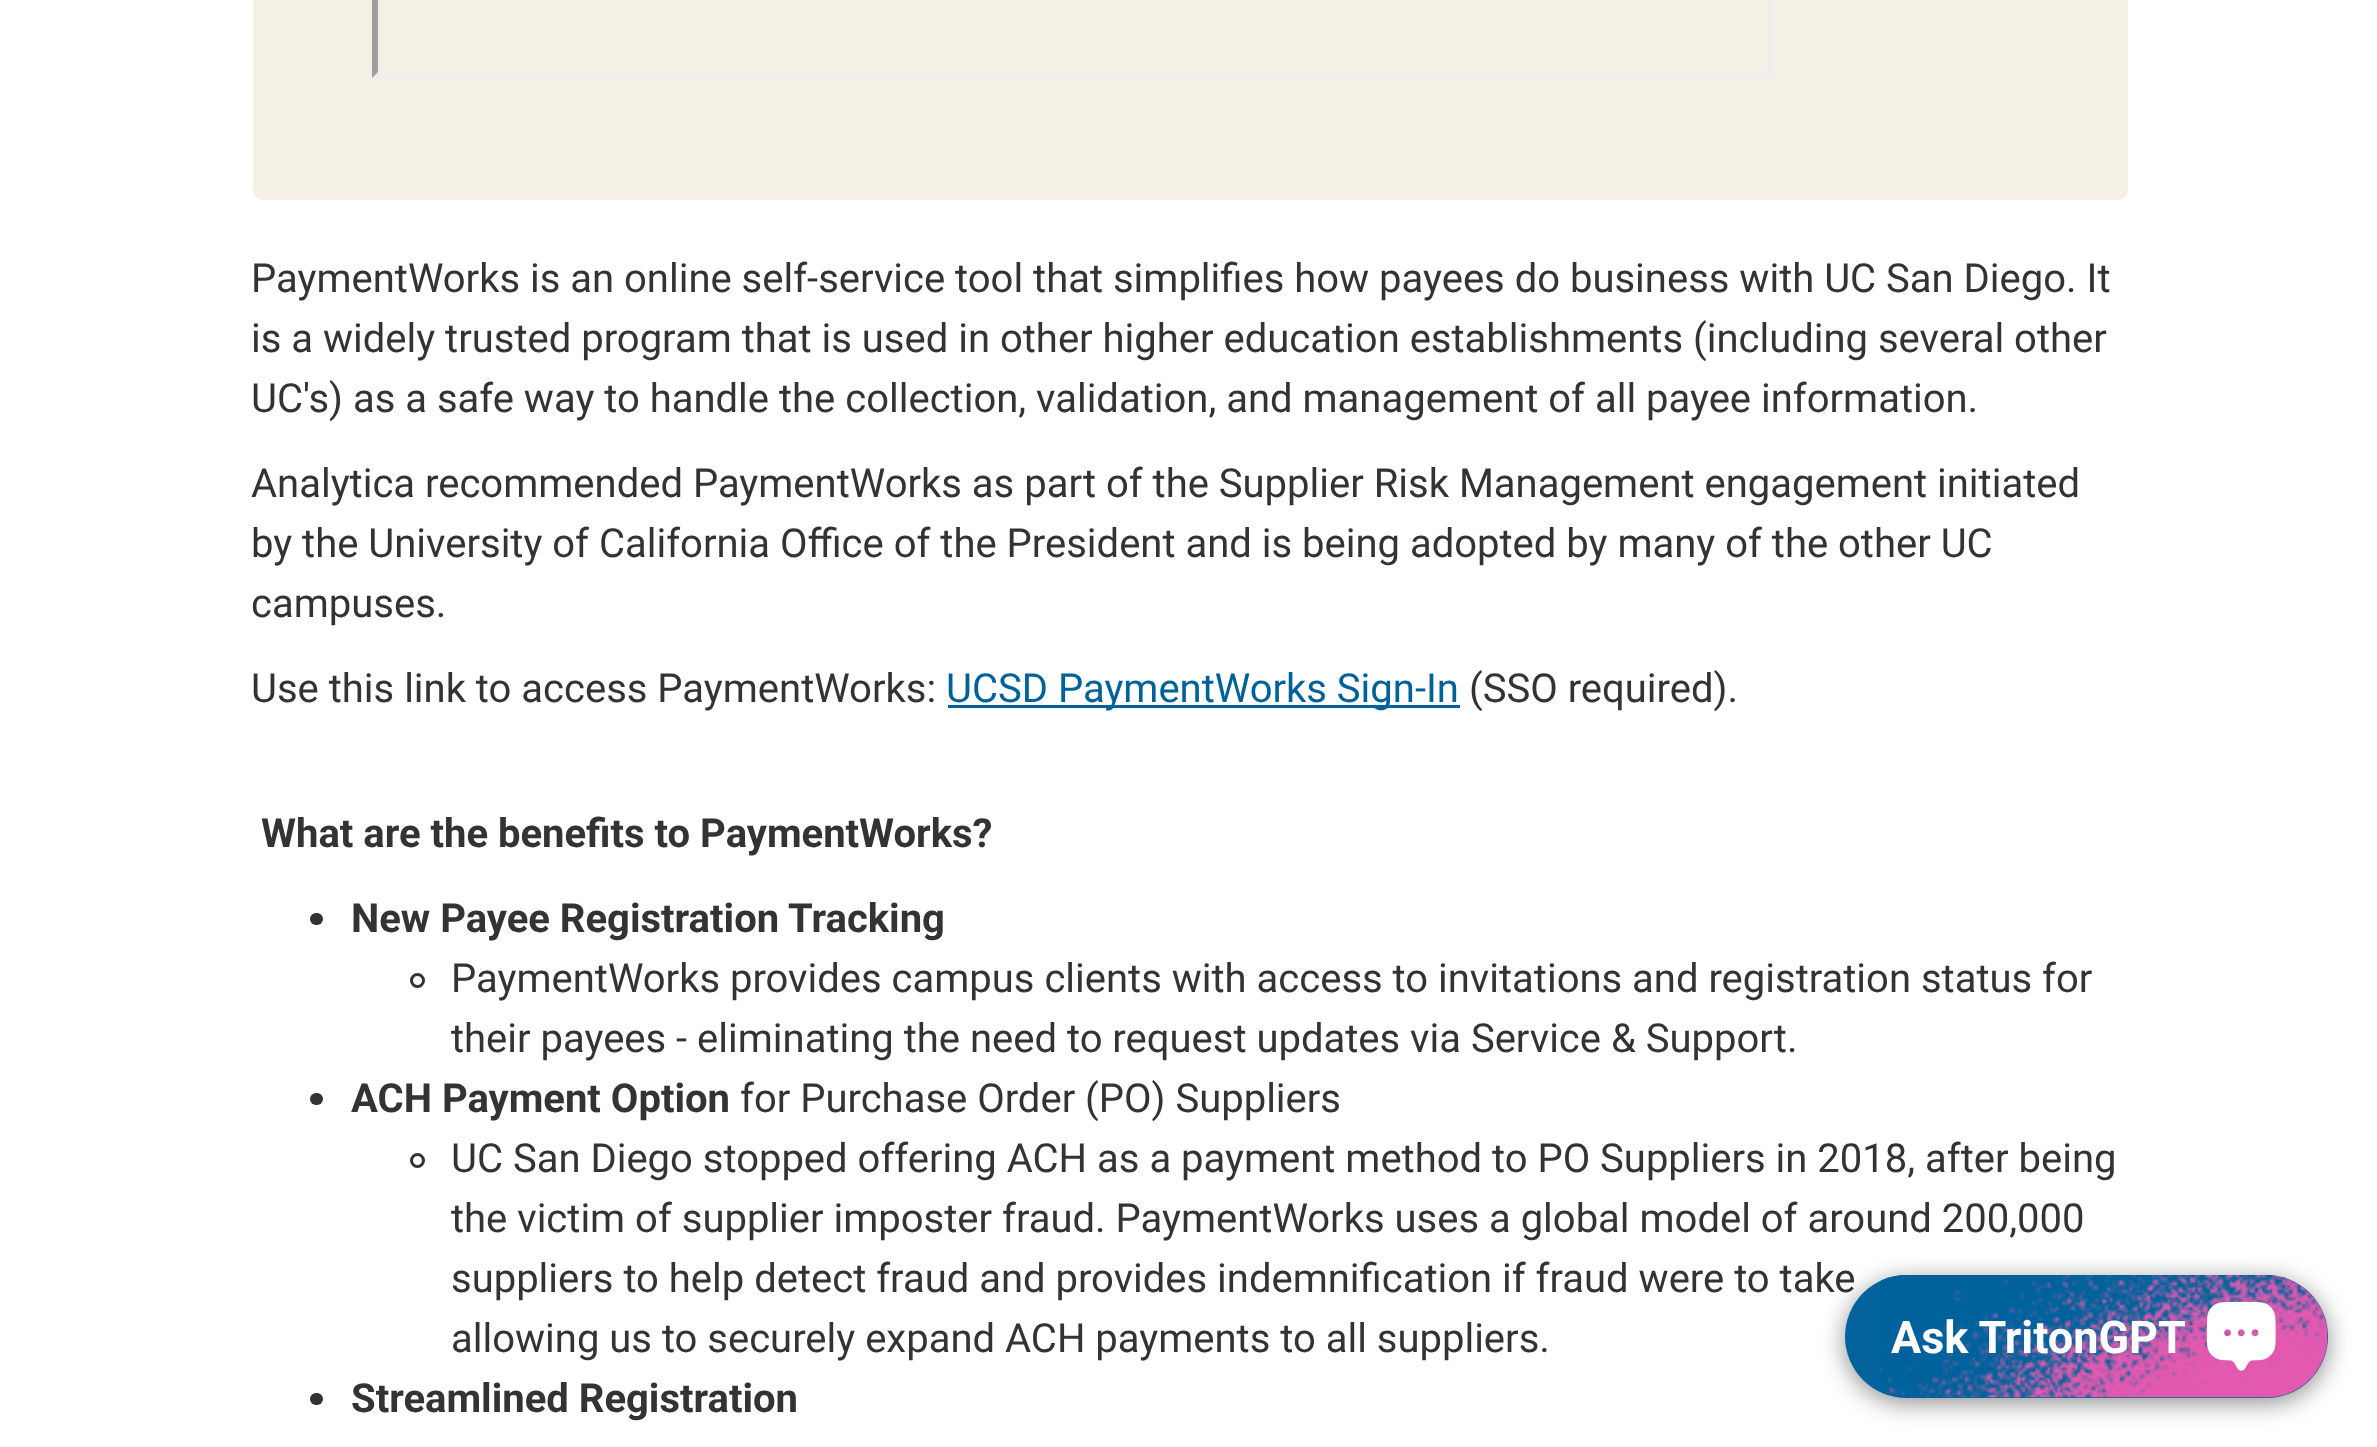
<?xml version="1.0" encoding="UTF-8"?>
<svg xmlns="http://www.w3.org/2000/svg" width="2377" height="1447">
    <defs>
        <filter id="blur1" x="-50%" y="-200%" width="200%" height="500%"><feGaussianBlur stdDeviation="12.5"/></filter>
    </defs>
    <rect width="100%" height="100%" fill="#FFFFFF"/>
    <rect x="253" y="-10" width="1875" height="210" rx="10" fill="#F5F0E6"/>
    <path d="M 1772 -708 V 78 L 1768 72 V -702 Z" fill="#EEEEEE"/>
    <path d="M 1772 78 H 372 L 378 72 H 1768 Z" fill="#EEEEEE"/>
    <path d="M 372 78 V -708 L 378 -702 V 72 Z" fill="#9F9F9F"/>
    <text font-family="Roboto" font-size="40" fill="#333333">
        <tspan x="251" y="292">PaymentWorks is an online self-service tool that simplifies how payees do business with UC San Diego. It</tspan>
        <tspan x="251" y="352">is a widely trusted program that is used in other higher education establishments (including several other</tspan>
        <tspan x="251" y="412">UC's) as a safe way to handle the collection, validation, and management of all payee information.</tspan>
    </text>
    <text font-family="Roboto" font-size="40" fill="#333333">
        <tspan x="251" y="497">Analytica recommended PaymentWorks as part of the Supplier Risk Management engagement initiated</tspan>
        <tspan x="251" y="557">by the University of California Office of the President and is being adopted by many of the other UC</tspan>
        <tspan x="251" y="617">campuses.</tspan>
    </text>
    <text x="251" y="702" font-family="Roboto" font-size="40" fill="#333333">Use this link to access PaymentWorks:</text>
    <rect x="948" y="705" width="512" height="3" fill="#00629B"/>
    <text x="946" y="702" font-family="Roboto" font-size="40" fill="#00629B">UCSD PaymentWorks Sign-In</text>
    <text x="1469" y="702" font-family="Roboto" font-size="40" fill="#333333">(SSO required).</text>
    <text x="261" y="847" font-family="Roboto" font-size="40" font-weight="700" fill="#333333">What are the benefits to PaymentWorks?</text>
    <rect x="310" y="913" width="13" height="12" rx="6" fill="#333333"/>
    <text x="351" y="932" font-family="Roboto" font-size="40" font-weight="700" fill="#333333">New Payee Registration Tracking</text>
    <circle cx="417.5" cy="980.5" r="6" fill="none" stroke="#333333" stroke-width="3"/>
    <text font-family="Roboto" font-size="40" fill="#333333">
        <tspan x="451" y="992">PaymentWorks provides campus clients with access to invitations and registration status for</tspan>
        <tspan x="451" y="1052">their payees - eliminating the need to request updates via Service &amp; Support.</tspan>
    </text>
    <rect x="310" y="1093" width="13" height="12" rx="6" fill="#333333"/>
    <text x="351" y="1112" font-family="Roboto" font-size="40" font-weight="700" fill="#333333">ACH Payment Option</text>
    <text x="740" y="1112" font-family="Roboto" font-size="40" fill="#333333">for Purchase Order (PO) Suppliers</text>
    <circle cx="417.5" cy="1160.5" r="6" fill="none" stroke="#333333" stroke-width="3"/>
    <text font-family="Roboto" font-size="40" fill="#333333">
        <tspan x="451" y="1172">UC San Diego stopped offering ACH as a payment method to PO Suppliers in 2018, after being</tspan>
        <tspan x="451" y="1232">the victim of supplier imposter fraud. PaymentWorks uses a global model of around 200,000</tspan>
        <tspan x="451" y="1292">suppliers to help detect fraud and provides indemnification if fraud were to take</tspan>
        <tspan x="451" y="1352">allowing us to securely expand ACH payments to all suppliers.</tspan>
    </text>
    <rect x="310" y="1393" width="13" height="12" rx="6" fill="#333333"/>
    <text x="351" y="1412" font-family="Roboto" font-size="40" font-weight="700" fill="#333333">Streamlined Registration</text>
    <rect x="1845" y="1280" width="483" height="123" rx="61.5" fill="#000000" fill-opacity="0.44" filter="url(#blur1)"/>
    <rect x="1845" y="1275" width="483" height="123" rx="61.5" fill="#03629C"/>
    <image x="1880" y="1275" width="448" height="123" href="img_01.png"/>
    <text x="1891" y="1353" font-family="Roboto" font-size="45" font-weight="700" fill="#FFFFFF">Ask TritonGPT</text>
    <image x="2206" y="1301" width="70" height="70" href="img_02.png"/>
</svg>
